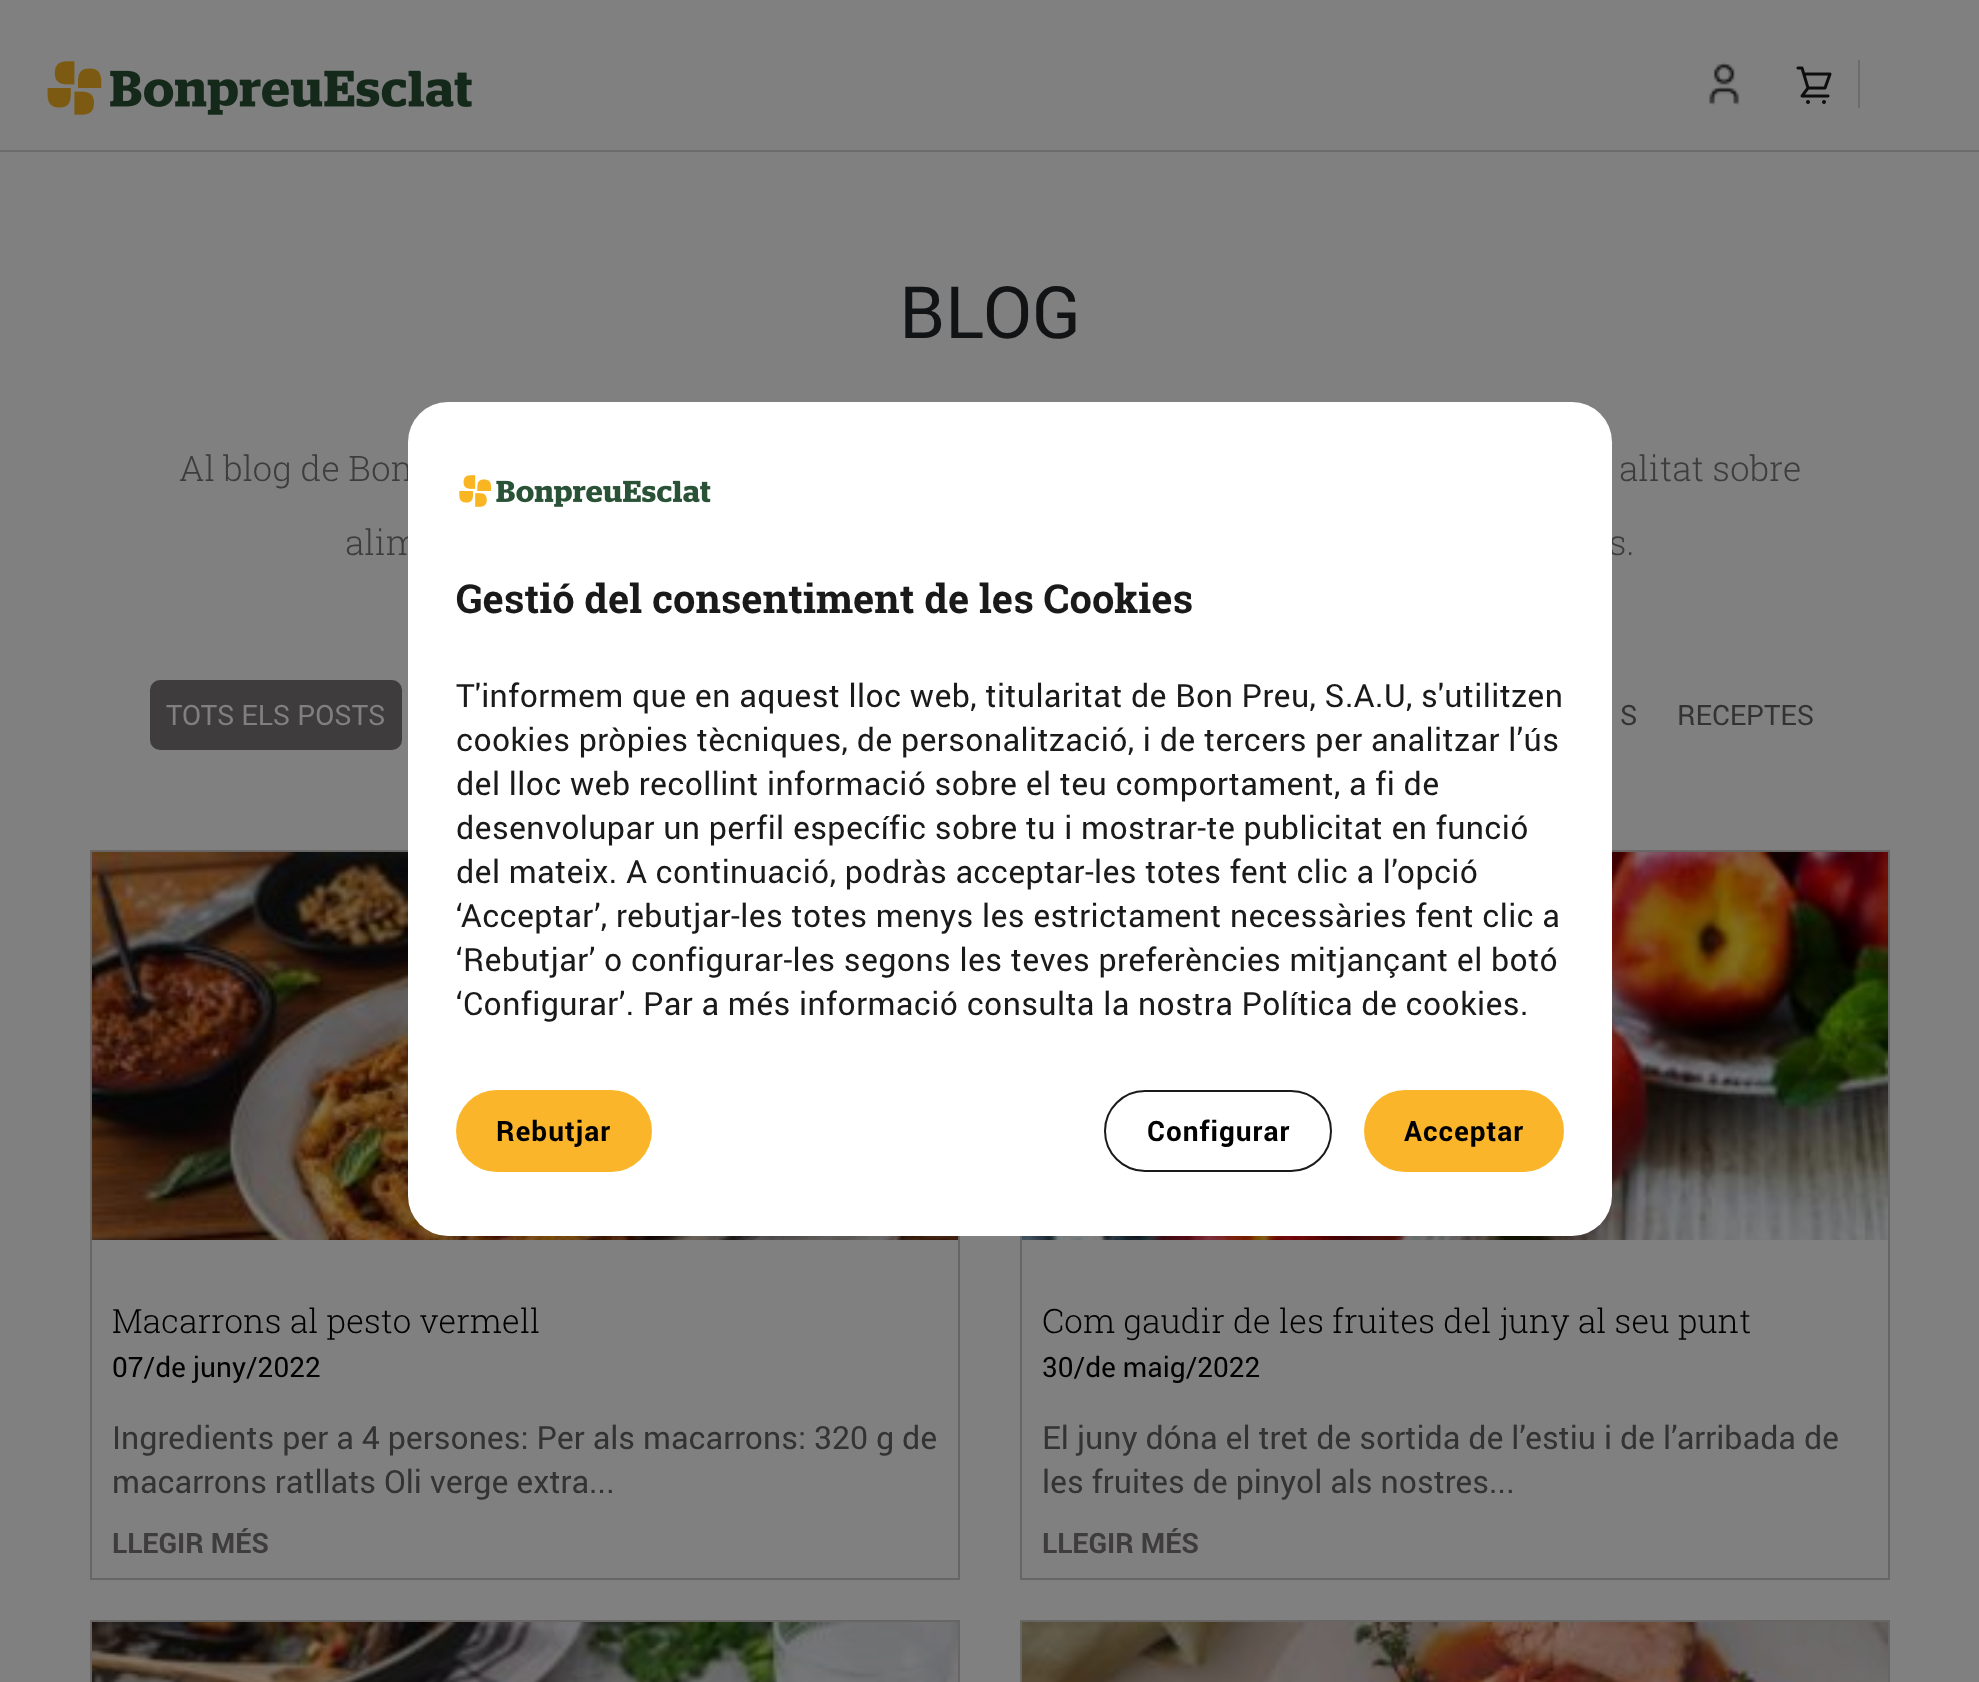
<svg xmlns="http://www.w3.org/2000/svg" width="1979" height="1682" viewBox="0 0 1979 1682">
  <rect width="100%" height="100%" fill="#808080"/>
  <path d="M0 150h1979v2H0z" fill="#6c6c6c"/>
  <image x="47" y="61" width="425" height="54" href="img/1.png"/>
  <image x="1709" y="62" width="31" height="44" href="img/2.png"/>
  <image x="1796" y="66" width="36" height="38" href="img/3.png"/>
  <path d="M1858 60h2v48H1858z" fill="#6c6c6c"/>
  <rect x="150" y="680" width="252" height="70" rx="10" fill="#3e3c3c"/>
  <path d="M91 851h868v728H91z" fill="none" stroke="#686565" stroke-width="2"/>
  <image x="92" y="852" width="866" height="388" href="img/4.png"/>
  <path d="M1021 851h868v728H1021z" fill="none" stroke="#686565" stroke-width="2"/>
  <image x="1022" y="852" width="866" height="388" href="img/5.png"/>
  <path d="M91 1621h868v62H91z" fill="none" stroke="#686565" stroke-width="2"/>
  <image x="92" y="1622" width="866" height="60" href="img/6.png"/>
  <path d="M1021 1621h868v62H1021z" fill="none" stroke="#686565" stroke-width="2"/>
  <image x="1022" y="1622" width="866" height="60" href="img/7.png"/>
  <text x="899" y="338" font-family="Roboto" font-size="72" fill="#111315">BLOG</text>
  <g font-family="Roboto Slab" font-size="35" font-weight="300" fill="#3e3c3c">
    <text x="179" y="481">Al blog de Bon</text>
    <text x="1619" y="481">alitat sobre</text>
    <text x="345" y="555">alim</text>
    <text x="1609" y="555">s.</text>
  </g>
  <text x="166" y="725" font-family="Roboto" font-size="28" fill="#808080">TOTS ELS POSTS</text>
  <g font-family="Roboto" font-size="28" fill="#333">
    <text x="1620" y="725">S</text>
    <text x="1677" y="725">RECEPTES</text>
  </g>
  <text x="112" y="1333" font-family="Roboto Slab" font-size="33.6" font-weight="300" fill="#000">Macarrons al pesto vermell</text>
  <text x="112" y="1377" font-family="Roboto" font-size="28" fill="#000">07/de juny/2022</text>
  <g font-family="Roboto" font-size="32" fill="#333">
    <text x="112" y="1449">Ingredients per a 4 persones: Per als macarrons: 320 g de</text>
    <text x="112" y="1493">macarrons ratllats Oli verge extra...</text>
  </g>
  <text x="112" y="1553" font-family="Roboto" font-size="28" font-weight="bold" fill="#3e3c3c">LLEGIR MÉS</text>
  <text x="1042" y="1333" font-family="Roboto Slab" font-size="33.6" font-weight="300" fill="#000">Com gaudir de les fruites del juny al seu punt</text>
  <text x="1042" y="1377" font-family="Roboto" font-size="28" fill="#000">30/de maig/2022</text>
  <g font-family="Roboto" font-size="32" fill="#333">
    <text x="1042" y="1449">El juny dóna el tret de sortida de l’estiu i de l’arribada de</text>
    <text x="1042" y="1493">les fruites de pinyol als nostres...</text>
  </g>
  <text x="1042" y="1553" font-family="Roboto" font-size="28" font-weight="bold" fill="#3e3c3c">LLEGIR MÉS</text>
  <rect x="408" y="402" width="1204" height="834" rx="40" fill="#fff"/>
  <image x="459" y="475" width="252" height="32" href="img/8.png"/>
  <text x="456" y="613" font-family="Roboto Slab" font-size="40" font-weight="bold" fill="#1a1a1a">Gestió del consentiment de les Cookies</text>
  <g font-family="Roboto" font-size="32" letter-spacing="0.4" fill="#1a1a1a">
    <text x="456" y="707">T'informem que en aquest lloc web, titularitat de Bon Preu, S.A.U, s'utilitzen</text>
    <text x="456" y="751">cookies pròpies tècniques, de personalització, i de tercers per analitzar l’ús</text>
    <text x="456" y="795">del lloc web recollint informació sobre el teu comportament, a fi de</text>
    <text x="456" y="839">desenvolupar un perfil específic sobre tu i mostrar-te publicitat en funció</text>
    <text x="456" y="883">del mateix. A continuació, podràs acceptar-les totes fent clic a l’opció</text>
    <text x="456" y="927">‘Acceptar’, rebutjar-les totes menys les estrictament necessàries fent clic a</text>
    <text x="456" y="971">‘Rebutjar’ o configurar-les segons les teves preferències mitjançant el botó</text>
    <text x="456" y="1015">‘Configurar’. Par a més informació consulta la nostra Política de cookies.</text>
  </g>
  <rect x="456" y="1090" width="196" height="82" rx="41" fill="#fab52a"/>
  <text x="496" y="1141" font-family="Roboto" font-size="28" font-weight="bold" letter-spacing="1" fill="#000">Rebutjar</text>
  <rect x="1105" y="1091" width="226" height="80" rx="40" fill="none" stroke="#1a1a1a" stroke-width="2"/>
  <text x="1147" y="1141" font-family="Roboto" font-size="28" font-weight="bold" letter-spacing="1" fill="#000">Configurar</text>
  <rect x="1364" y="1090" width="200" height="82" rx="41" fill="#fab52a"/>
  <text x="1404" y="1141" font-family="Roboto" font-size="28" font-weight="bold" letter-spacing="1" fill="#000">Acceptar</text>
</svg>
